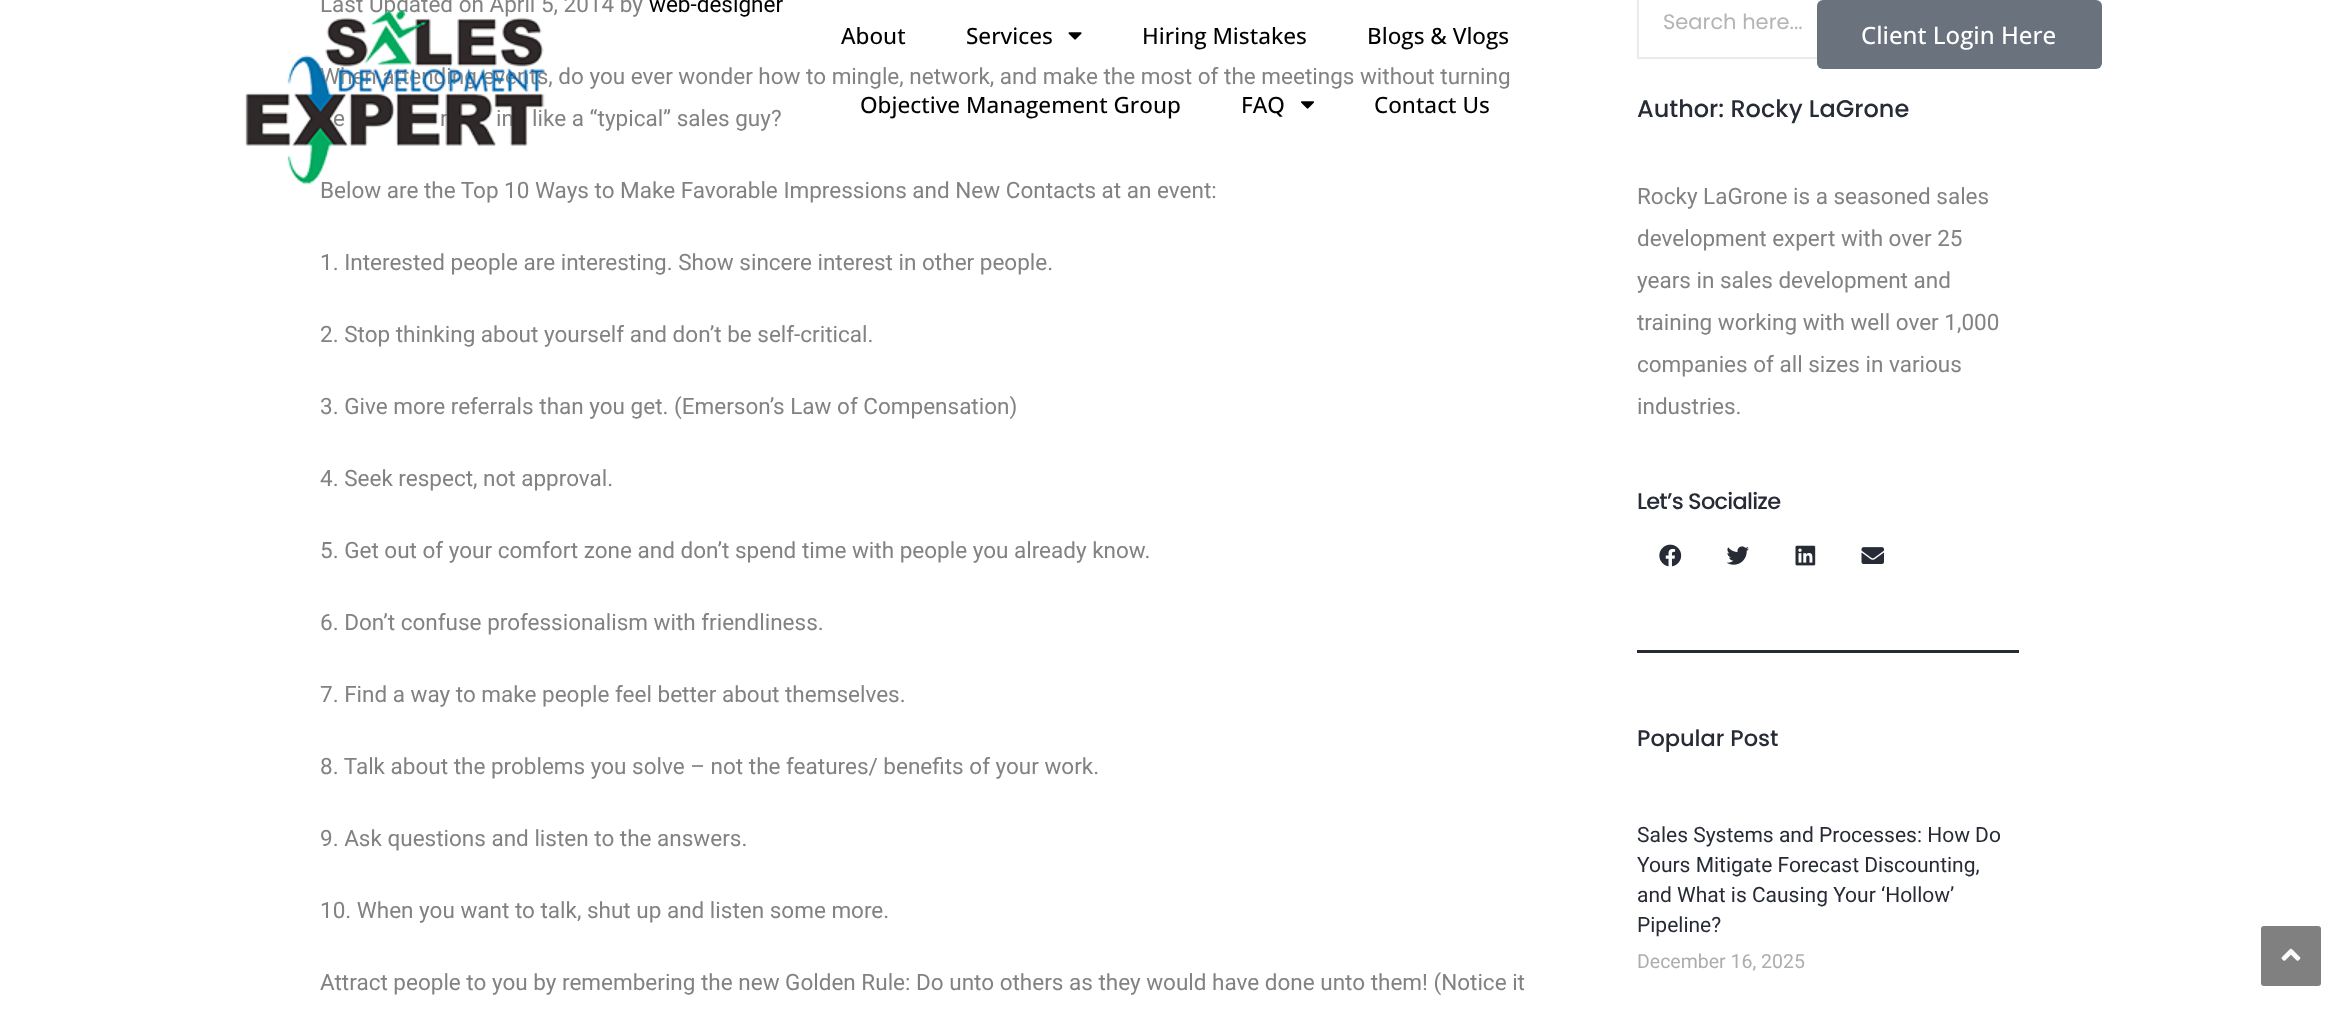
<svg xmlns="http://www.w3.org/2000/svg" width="2350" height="1015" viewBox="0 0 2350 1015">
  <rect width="100%" height="100%" fill="#fff"/>
  <path d="M1638 -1h380v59H1638z" fill="none" stroke="#ebebeb" stroke-width="2"/>
  <image x="1659" y="544" width="23" height="23" href="img/1.png"/>
  <image x="1726" y="546" width="23" height="19" href="img/2.png"/>
  <image x="1795" y="545" width="21" height="21" href="img/3.png"/>
  <image x="1861" y="547" width="23" height="17" href="img/4.png"/>
  <path d="M1637 650h382v3H1637z" fill="#272b36"/>
  <image x="1068" y="32" width="14" height="8" href="img/6.png"/>
  <image x="1301" y="101" width="13" height="8" href="img/7.png"/>
  <rect x="1817" width="285" height="69" rx="6" fill="#69727d"/>
  <rect x="2261" y="926" width="60" height="60" rx="3" fill="#808080"/>
  <image x="2281" y="948" width="20" height="13" href="img/8.png"/>
  <text x="320" y="12" font-family="Roboto" font-size="22.5" fill="#828282">Last Updated on April 5, 2014 by</text>
  <text x="649" y="12" font-family="Roboto" font-size="22.5" fill="#000">web-designer</text>
  <g font-family="Roboto" font-size="22.5" fill="#828282">
    <text x="320" y="84">When attending events, do you ever wonder how to mingle, network, and make the most of the meetings without turning</text>
    <text x="333" y="126">e</text>
    <text x="440" y="126">r</text>
    <text x="496" y="126">ing like a “typical” sales guy?</text>
    <text x="320" y="198">Below are the Top 10 Ways to Make Favorable Impressions and New Contacts at an event:</text>
    <text x="320" y="270">1. Interested people are interesting. Show sincere interest in other people.</text>
    <text x="320" y="342">2. Stop thinking about yourself and don’t be self-critical.</text>
    <text x="320" y="414">3. Give more referrals than you get. (Emerson’s Law of Compensation)</text>
    <text x="320" y="486">4. Seek respect, not approval.</text>
    <text x="320" y="558">5. Get out of your comfort zone and don’t spend time with people you already know.</text>
    <text x="320" y="630">6. Don’t confuse professionalism with friendliness.</text>
    <text x="320" y="702">7. Find a way to make people feel better about themselves.</text>
    <text x="320" y="774">8. Talk about the problems you solve – not the features/ benefits of your work.</text>
    <text x="320" y="846">9. Ask questions and listen to the answers.</text>
    <text x="320" y="918">10. When you want to talk, shut up and listen some more.</text>
    <text x="320" y="990">Attract people to you by remembering the new Golden Rule: Do unto others as they would have done unto them! (Notice it</text>
  </g>
  <text x="1663" y="29" font-family="Poppins" font-size="21" fill="#b4b4b4">Search here...</text>
  <text x="1637" y="117" font-family="Poppins" font-size="24" font-weight="500" fill="#272b36">Author: Rocky LaGrone</text>
  <g font-family="Roboto" font-size="22.5" fill="#828282">
    <text x="1637" y="204">Rocky LaGrone is a seasoned sales</text>
    <text x="1637" y="246">development expert with over 25</text>
    <text x="1637" y="288">years in sales development and</text>
    <text x="1637" y="330">training working with well over 1,000</text>
    <text x="1637" y="372">companies of all sizes in various</text>
    <text x="1637" y="414">industries.</text>
  </g>
  <text x="1637" y="509" font-family="Poppins" font-size="22.5" font-weight="500" letter-spacing="-0.75" fill="#272b36">Let’s Socialize</text>
  <text x="1637" y="746" font-family="Poppins" font-size="22.5" font-weight="500" fill="#272b36">Popular Post</text>
  <g font-family="Roboto" font-size="21" fill="#272b36">
    <text x="1637" y="842">Sales Systems and Processes: How Do</text>
    <text x="1637" y="872">Yours Mitigate Forecast Discounting,</text>
    <text x="1637" y="902">and What is Causing Your ‘Hollow’</text>
    <text x="1637" y="932">Pipeline?</text>
  </g>
  <text x="1637" y="968" font-family="Roboto" font-size="19.5" fill="#adadad">December 16, 2025</text>
  <image x="245" y="10" width="300" height="175" href="img/5.png"/>
  <g font-family="Open Sans" font-size="22.5" font-weight="500" fill="#000">
    <text x="841" y="44">About</text>
    <text x="966" y="44">Services</text>
    <text x="1142" y="44">Hiring Mistakes</text>
    <text x="1367" y="44">Blogs &amp; Vlogs</text>
    <text x="860" y="113">Objective Management Group</text>
    <text x="1241" y="113">FAQ</text>
    <text x="1374" y="113">Contact Us</text>
  </g>
  <text x="1861" y="44" font-family="Open Sans" font-size="24" font-weight="500" fill="#fff">Client Login Here</text>
</svg>
